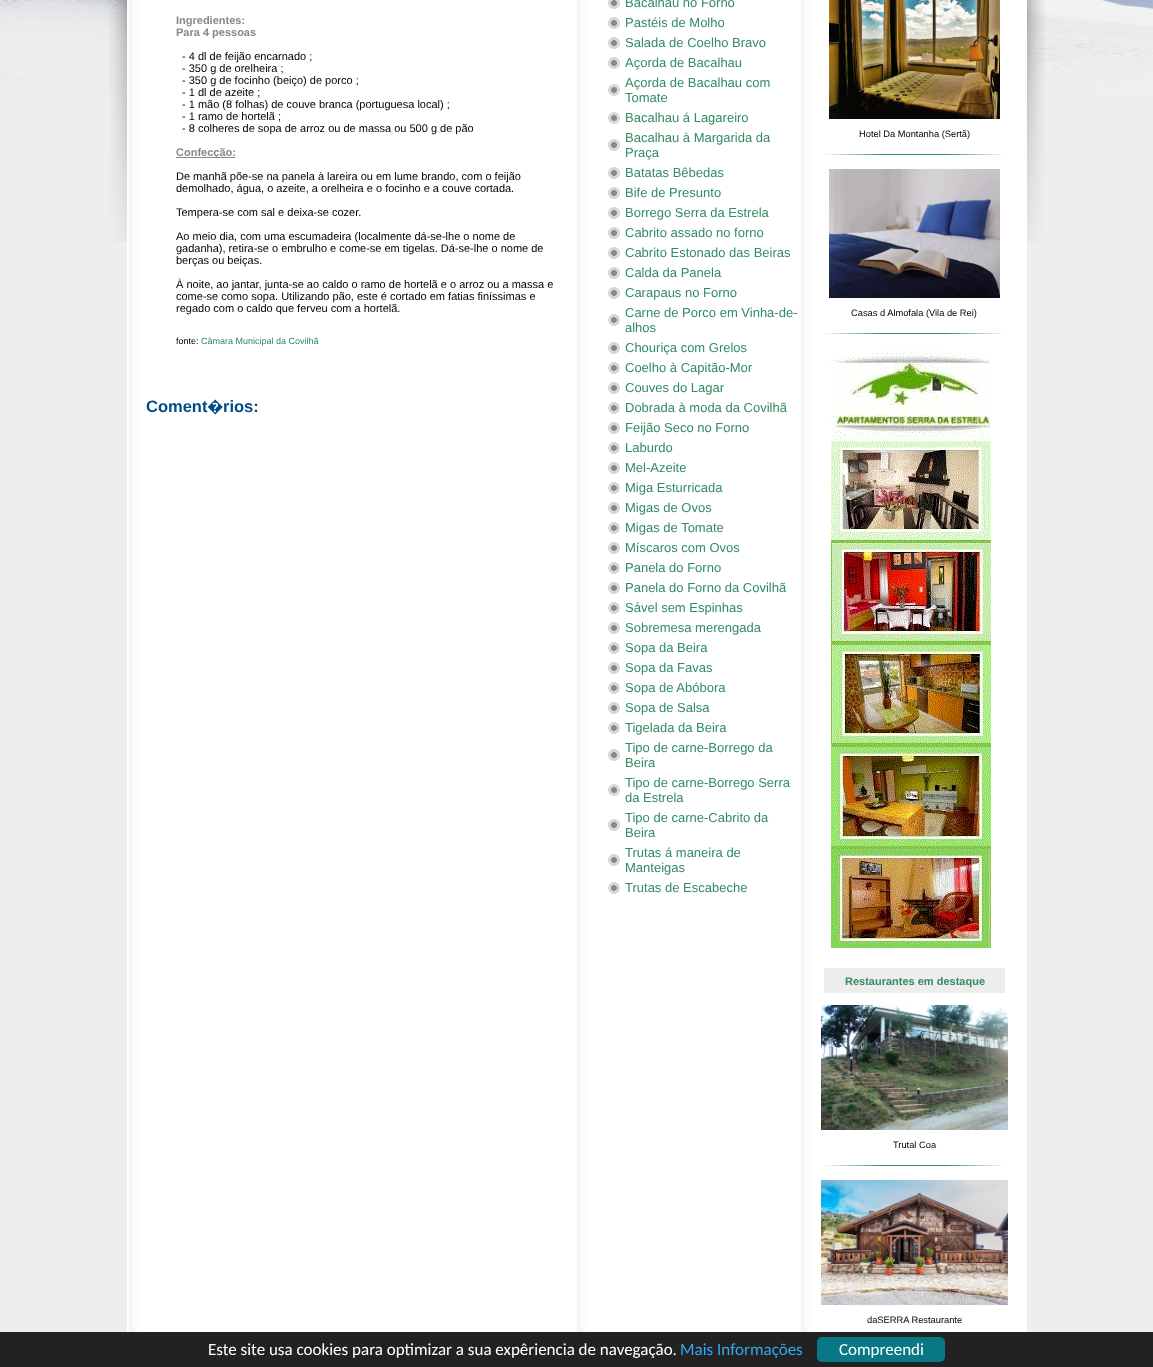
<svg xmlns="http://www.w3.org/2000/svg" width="1153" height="1367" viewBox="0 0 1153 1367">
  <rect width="100%" height="100%" fill="#eee"/>
  <image x="0" y="0" width="1153" height="95" href="img/1.png"/>
  <image x="109" y="0" width="18" height="242" href="img/2.png"/>
  <image x="1027" y="0" width="18" height="242" href="img/3.png"/>
  <image x="127" y="0" width="900" height="1332" href="img/4.png"/>
  <path d="M176 157h59v1H176z" fill="#888"/>
  <image x="608" y="0" width="12" height="9" href="img/5.png"/>
  <image x="608" y="17" width="12" height="12" href="img/6.png"/>
  <image x="608" y="37" width="12" height="12" href="img/6.png"/>
  <image x="608" y="57" width="12" height="12" href="img/6.png"/>
  <image x="608" y="84" width="12" height="12" href="img/6.png"/>
  <image x="608" y="112" width="12" height="12" href="img/6.png"/>
  <image x="608" y="139" width="12" height="12" href="img/6.png"/>
  <image x="608" y="167" width="12" height="12" href="img/6.png"/>
  <image x="608" y="187" width="12" height="12" href="img/6.png"/>
  <image x="608" y="207" width="12" height="12" href="img/6.png"/>
  <image x="608" y="227" width="12" height="12" href="img/6.png"/>
  <image x="608" y="247" width="12" height="12" href="img/6.png"/>
  <image x="608" y="267" width="12" height="12" href="img/6.png"/>
  <image x="608" y="287" width="12" height="12" href="img/6.png"/>
  <image x="608" y="314" width="12" height="12" href="img/6.png"/>
  <image x="608" y="342" width="12" height="12" href="img/6.png"/>
  <image x="608" y="362" width="12" height="12" href="img/6.png"/>
  <image x="608" y="382" width="12" height="12" href="img/6.png"/>
  <image x="608" y="402" width="12" height="12" href="img/6.png"/>
  <image x="608" y="422" width="12" height="12" href="img/6.png"/>
  <image x="608" y="442" width="12" height="12" href="img/6.png"/>
  <image x="608" y="462" width="12" height="12" href="img/6.png"/>
  <image x="608" y="482" width="12" height="12" href="img/6.png"/>
  <image x="608" y="502" width="12" height="12" href="img/6.png"/>
  <image x="608" y="522" width="12" height="12" href="img/6.png"/>
  <image x="608" y="542" width="12" height="12" href="img/6.png"/>
  <image x="608" y="562" width="12" height="12" href="img/6.png"/>
  <image x="608" y="582" width="12" height="12" href="img/6.png"/>
  <image x="608" y="602" width="12" height="12" href="img/6.png"/>
  <image x="608" y="622" width="12" height="12" href="img/6.png"/>
  <image x="608" y="642" width="12" height="12" href="img/6.png"/>
  <image x="608" y="662" width="12" height="12" href="img/6.png"/>
  <image x="608" y="682" width="12" height="12" href="img/6.png"/>
  <image x="608" y="702" width="12" height="12" href="img/6.png"/>
  <image x="608" y="722" width="12" height="12" href="img/6.png"/>
  <image x="608" y="749" width="12" height="12" href="img/6.png"/>
  <image x="608" y="784" width="12" height="12" href="img/6.png"/>
  <image x="608" y="819" width="12" height="12" href="img/6.png"/>
  <image x="608" y="854" width="12" height="12" href="img/6.png"/>
  <image x="608" y="882" width="12" height="12" href="img/6.png"/>
  <image x="829" y="0" width="171" height="119" href="img/7.png"/>
  <image x="823" y="154" width="181" height="1" href="img/8.png"/>
  <image x="829" y="169" width="171" height="129" href="img/9.png"/>
  <image x="823" y="333" width="181" height="1" href="img/8.png"/>
  <image x="831" y="351" width="160" height="597" href="img/10.png"/>
  <path d="M824 968h181v25H824z" fill="#ededed"/>
  <image x="821" y="1005" width="187" height="125" href="img/11.png"/>
  <image x="823" y="1165" width="181" height="1" href="img/8.png"/>
  <image x="821" y="1180" width="187" height="125" href="img/12.png"/>
  <path d="M0 1332h1153v35H0z" fill="#222"/>
  <rect x="817" y="1337" width="128" height="25" rx="5" fill="#087886"/>
  <g font-family="Liberation Sans" font-size="11" font-weight="bold" fill="#888">
    <text x="176" y="24">Ingredientes:</text>
    <text x="176" y="36">Para 4 pessoas</text>
  </g>
  <g font-family="Liberation Sans" font-size="11" fill="#000">
    <text x="182" y="60">- 4 dl de feijão encarnado ;</text>
    <text x="182" y="72">- 350 g de orelheira ;</text>
    <text x="182" y="84">- 350 g de focinho (beiço) de porco ;</text>
    <text x="182" y="96">- 1 dl de azeite ;</text>
    <text x="182" y="108">- 1 mão (8 folhas) de couve branca (portuguesa local) ;</text>
    <text x="182" y="120">- 1 ramo de hortelã ;</text>
    <text x="182" y="132">- 8 colheres de sopa de arroz ou de massa ou 500 g de pão</text>
  </g>
  <text x="176" y="156" font-family="Liberation Sans" font-size="11" font-weight="bold" fill="#888">Confecção:</text>
  <g font-family="Liberation Sans" font-size="11" fill="#000">
    <text x="176" y="180">De manhã põe-se na panela à lareira ou em lume brando, com o feijão</text>
    <text x="176" y="192">demolhado, água, o azeite, a orelheira e o focinho e a couve cortada.</text>
    <text x="176" y="216">Tempera-se com sal e deixa-se cozer.</text>
    <text x="176" y="240">Ao meio dia, com uma escumadeira (localmente dá-se-lhe o nome de</text>
    <text x="176" y="252">gadanha), retira-se o embrulho e come-se em tigelas. Dá-se-lhe o nome de</text>
    <text x="176" y="264">berças ou beiças.</text>
    <text x="176" y="288">À noite, ao jantar, junta-se ao caldo o ramo de hortelã e o arroz ou a massa e</text>
    <text x="176" y="300">come-se como sopa. Utilizando pão, este é cortado em fatias finíssimas e</text>
    <text x="176" y="312">regado com o caldo que ferveu com a hortelã.</text>
  </g>
  <text x="176" y="344" font-family="Liberation Sans" font-size="9" fill="#000">fonte:</text>
  <text x="201" y="344" font-family="Liberation Sans" font-size="9" fill="#338b61">Câmara Municipal da Covilhã</text>
  <text x="146" y="412" font-family="Liberation Sans" font-size="16.5" font-weight="bold" fill="#004c89">Coment</text>
  <text x="207" y="412" font-family="Noto Sans" font-size="16.5" font-weight="bold" fill="#004c89">�</text>
  <text x="223" y="412" font-family="Liberation Sans" font-size="16.5" font-weight="bold" fill="#004c89">rios:</text>
  <g font-family="Liberation Sans" font-size="13" fill="#338b61">
    <text x="625" y="7">Bacalhau no Forno</text>
    <text x="625" y="27">Pastéis de Molho</text>
    <text x="625" y="47">Salada de Coelho Bravo</text>
    <text x="625" y="67">Açorda de Bacalhau</text>
    <text x="625" y="87">Açorda de Bacalhau com</text>
    <text x="625" y="102">Tomate</text>
    <text x="625" y="122">Bacalhau á Lagareiro</text>
    <text x="625" y="142">Bacalhau à Margarida da</text>
    <text x="625" y="157">Praça</text>
    <text x="625" y="177">Batatas Bêbedas</text>
    <text x="625" y="197">Bife de Presunto</text>
    <text x="625" y="217">Borrego Serra da Estrela</text>
    <text x="625" y="237">Cabrito assado no forno</text>
    <text x="625" y="257">Cabrito Estonado das Beiras</text>
    <text x="625" y="277">Calda da Panela</text>
    <text x="625" y="297">Carapaus no Forno</text>
    <text x="625" y="317">Carne de Porco em Vinha-de-</text>
    <text x="625" y="332">alhos</text>
    <text x="625" y="352">Chouriça com Grelos</text>
    <text x="625" y="372">Coelho à Capitão-Mor</text>
    <text x="625" y="392">Couves do Lagar</text>
    <text x="625" y="412">Dobrada à moda da Covilhã</text>
    <text x="625" y="432">Feijão Seco no Forno</text>
    <text x="625" y="452">Laburdo</text>
    <text x="625" y="472">Mel-Azeite</text>
    <text x="625" y="492">Miga Esturricada</text>
    <text x="625" y="512">Migas de Ovos</text>
    <text x="625" y="532">Migas de Tomate</text>
    <text x="625" y="552">Míscaros com Ovos</text>
    <text x="625" y="572">Panela do Forno</text>
    <text x="625" y="592">Panela do Forno da Covilhã</text>
    <text x="625" y="612">Sável sem Espinhas</text>
    <text x="625" y="632">Sobremesa merengada</text>
    <text x="625" y="652">Sopa da Beira</text>
    <text x="625" y="672">Sopa da Favas</text>
    <text x="625" y="692">Sopa de Abóbora</text>
    <text x="625" y="712">Sopa de Salsa</text>
    <text x="625" y="732">Tigelada da Beira</text>
    <text x="625" y="752">Tipo de carne-Borrego da</text>
    <text x="625" y="767">Beira</text>
    <text x="625" y="787">Tipo de carne-Borrego Serra</text>
    <text x="625" y="802">da Estrela</text>
    <text x="625" y="822">Tipo de carne-Cabrito da</text>
    <text x="625" y="837">Beira</text>
    <text x="625" y="857">Trutas á maneira de</text>
    <text x="625" y="872">Manteigas</text>
    <text x="625" y="892">Trutas de Escabeche</text>
  </g>
  <g font-family="Liberation Sans" font-size="9.3" fill="#000">
    <text x="859" y="137">Hotel Da Montanha (Sertã)</text>
    <text x="851" y="316">Casas d Almofala (Vila de Rei)</text>
  </g>
  <text x="845" y="985" font-family="Liberation Sans" font-size="11" font-weight="bold" fill="#338b61">Restaurantes em destaque</text>
  <g font-family="Liberation Sans" font-size="9.3" fill="#000">
    <text x="893" y="1148">Trutal Coa</text>
    <text x="867" y="1323">daSERRA Restaurante</text>
  </g>
  <text x="208" y="1355" font-family="Carlito" font-size="17" fill="#fff">Este site usa cookies para optimizar a sua expêriencia de navegação.</text>
  <text x="680" y="1355" font-family="Carlito" font-size="17" fill="#31a8f0">Mais Informações</text>
  <text x="839" y="1355" font-family="Carlito" font-size="17" fill="#fff">Compreendi</text>
</svg>
